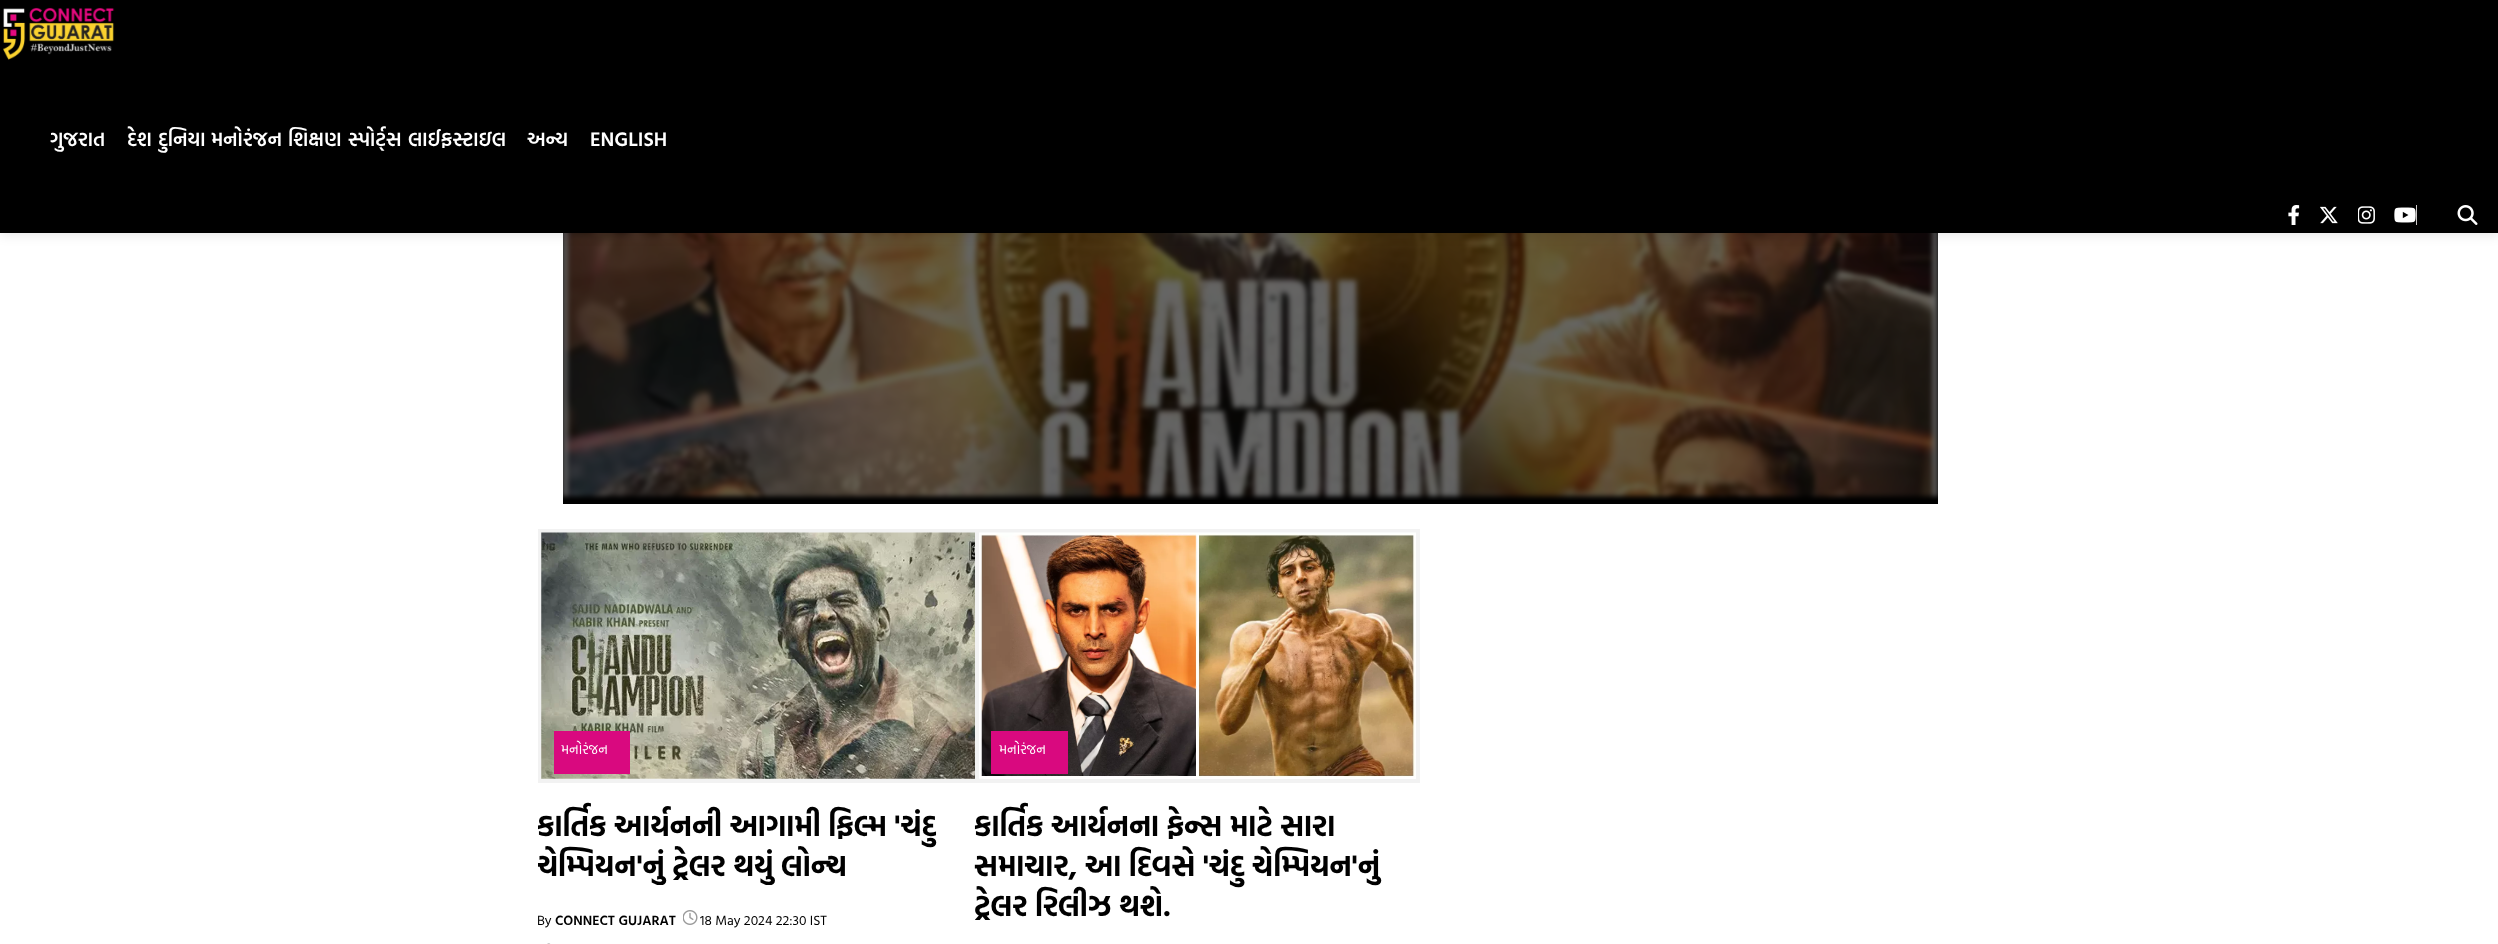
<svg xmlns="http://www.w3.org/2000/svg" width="2498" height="944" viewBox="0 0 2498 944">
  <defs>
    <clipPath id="clip1"><path d="M538 799h437v86H538z"/></clipPath>
    <clipPath id="clip2"><path d="M975 799h438v126H975z"/></clipPath>
  </defs>
  <rect width="100%" height="100%" fill="#fff"/>
  <path d="M563 233h1375v271H563z" fill="#000"/>
  <image x="563" y="233" width="1375" height="267" href="img/7.png"/>
  <path d="M0 3h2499v232H0z" fill="#0000001a" filter="blur(6px)"/>
  <path d="M0 0h2498v233H0z" fill="#000"/>
  <image x="3" y="7" width="112" height="53" href="img/1.png"/>
  <image x="2288" y="205" width="12" height="20" href="img/2.png"/>
  <image x="2320" y="206" width="18" height="18" href="img/3.png"/>
  <image x="2358" y="206" width="17" height="18" href="img/4.png"/>
  <image x="2394" y="207" width="22" height="16" href="img/5.png"/>
  <path d="M2416 205h1v20H2416z" fill="#cdcaca"/>
  <image x="2457" y="205" width="21" height="20" href="img/6.png"/>
  <path d="M540 531h441v250H540z" fill="none" stroke="#f2f2f2" stroke-width="4"/>
  <image x="541" y="532" width="434" height="247" href="img/8.png"/>
  <path d="M554 731h76v43H554z" fill="#d9097f"/>
  <image x="683" y="910" width="15" height="15" href="img/9.png"/>
  <image x="547" y="943" width="4" height="1" href="img/10.png"/>
  <path d="M977 531h441v250H977z" fill="none" stroke="#f2f2f2" stroke-width="4"/>
  <image x="979" y="532" width="437" height="247" href="img/11.png"/>
  <path d="M991 731h77v43H991z" fill="#d9097f"/>
  <g font-family="Hind Vadodara" font-size="20" font-weight="600" fill="#fff">
    <text x="50" y="146">ગુજરાત</text>
    <text x="127" y="146">દેશ</text>
    <text x="158" y="146">દુનિયા</text>
    <text x="211" y="146">મનોરંજન</text>
    <text x="288" y="146">શિક્ષણ</text>
    <text x="348" y="146">સ્પોર્ટ્સ</text>
    <text x="408" y="146">લાઈફસ્ટાઇલ</text>
    <text x="527" y="146">અન્ય</text>
    <text x="590" y="146">ENGLISH</text>
  </g>
  <text x="561" y="754" font-family="Hind Vadodara" font-size="13.75" fill="#fff">મનોરંજન</text>
  <g clip-path="url(#clip1)">
    <g font-family="Hind Vadodara" font-size="30" font-weight="bold" fill="#000">
      <text x="537" y="836">કાર્તિક આર્યનની આગામી ફિલ્મ 'ચંદુ</text>
      <text x="537" y="876">ચેમ્પિયન'નું ટ્રેલર થયું લોન્ચ</text>
    </g>
  </g>
  <text x="537" y="925" font-family="Hind Vadodara" font-size="13.75" fill="#000">By</text>
  <text x="555" y="925" font-family="Hind Vadodara" font-size="13.75" font-weight="600" fill="#000">CONNECT GUJARAT</text>
  <text x="700" y="925" font-family="Hind Vadodara" font-size="13.75" fill="#000">18 May 2024 22:30 IST</text>
  <text x="999" y="754" font-family="Hind Vadodara" font-size="13.75" fill="#fff">મનોરંજન</text>
  <g font-family="Hind Vadodara" font-size="30" font-weight="bold" fill="#000">
    <text x="974" y="836">કાર્તિક આર્યનના ફેન્સ માટે સારા</text>
    <text x="974" y="876">સમાચાર, આ દિવસે 'ચંદુ ચેમ્પિયન'નું</text>
  </g>
  <g clip-path="url(#clip2)">
    <text x="974" y="916" font-family="Hind Vadodara" font-size="30" font-weight="bold" fill="#000">ટ્રેલર રિલીઝ થશે.</text>
  </g>
</svg>
